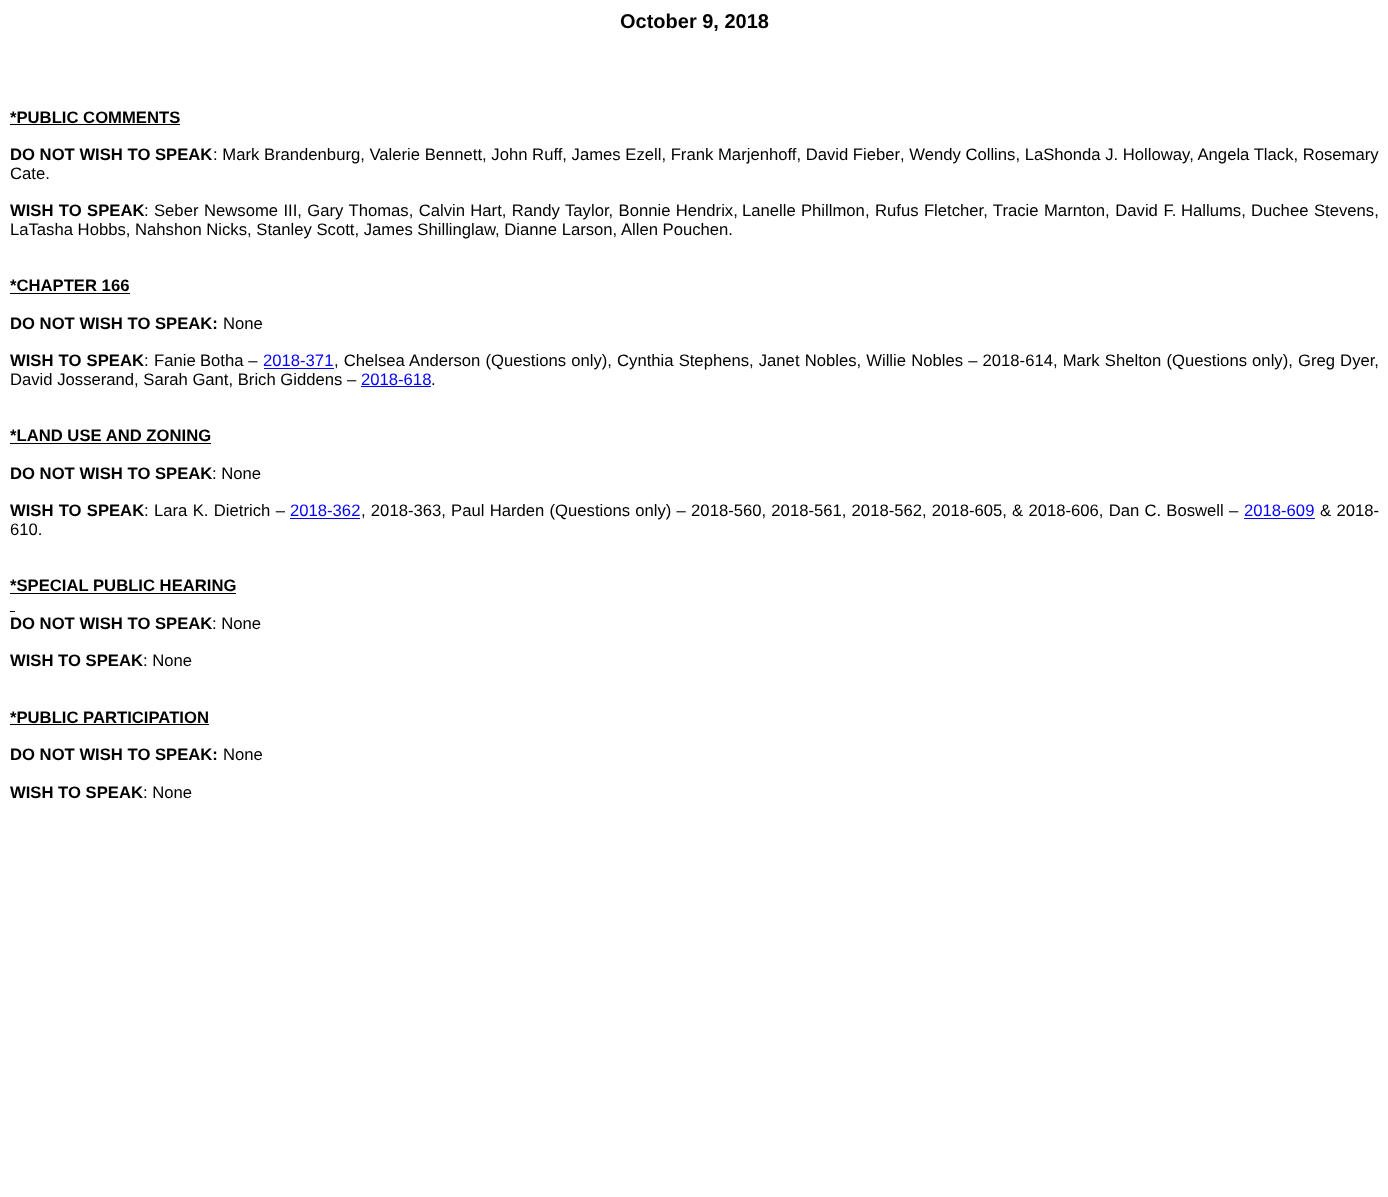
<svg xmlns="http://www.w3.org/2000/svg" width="1388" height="1197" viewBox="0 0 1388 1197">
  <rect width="100%" height="100%" fill="#fff"/>
  <path d="M10 124h170v1H10z" fill="#000"/>
  <path d="M10 293h120v1H10z" fill="#000"/>
  <path d="M264 368h70v1H264z" fill="#00f"/>
  <path d="M361 386h70v1H361z" fill="#00f"/>
  <path d="M10 443h201v1H10z" fill="#000"/>
  <path d="M290 518h70v1H290z" fill="#00f"/>
  <path d="M1244 518h71v1H1244z" fill="#00f"/>
  <path d="M10 593h226v1H10z" fill="#000"/>
  <path d="M10 611h5v1H10z" fill="#000"/>
  <path d="M10 724h199v1H10z" fill="#000"/>
  <text x="620" y="28" font-family="Liberation Sans" font-size="20" font-weight="bold" fill="#000">October 9, 2018</text>
  <g font-family="Liberation Sans" font-size="16.67" font-weight="bold" fill="#000">
    <text x="10" y="123">*PUBLIC COMMENTS</text>
    <text x="10" y="160">DO NOT WISH TO SPEAK</text>
  </g>
  <g font-family="Liberation Sans" font-size="16.67" fill="#000">
    <text x="213" y="160">: Mark Brandenburg, Valerie Bennett, John Ruff, James Ezell, Frank</text>
    <text x="718" y="160">Marjenhoff, David Fieber</text>
    <text x="900" y="160">, Wendy Collins, LaShonda J. Holloway, Angela Tlack, Rosemary</text>
    <text x="10" y="179">Cate.</text>
  </g>
  <text x="10" y="216" word-spacing="0.75" font-family="Liberation Sans" font-size="16.67" font-weight="bold" fill="#000">WISH TO SPEAK</text>
  <g font-family="Liberation Sans" font-size="16.67" fill="#000">
    <text x="144" y="216">:</text>
    <text x="154" y="216">Seber</text>
    <text x="204" y="216" word-spacing="0.75">Newsome III, Gary Thomas, Calvin Hart, Randy Taylor, Bonnie Hendrix,</text>
    <text x="742" y="216">Lanelle</text>
    <text x="801" y="216">Phillmon</text>
    <text x="865" y="216" word-spacing="0.75">, Rufus Fletcher, Tracie</text>
    <text x="1044" y="216">Marnton</text>
    <text x="1105" y="216" word-spacing="1">, David F.</text>
    <text x="1181" y="216">Hallums,</text>
    <text x="1251" y="216">Duchee</text>
    <text x="1314" y="216">Stevens,</text>
    <text x="10" y="235">LaTasha Hobbs, Nahshon Nicks, Stanley Scott, James Shillinglaw</text>
    <text x="495" y="235">, Dianne Larson, Allen Pouchen.</text>
  </g>
  <g font-family="Liberation Sans" font-size="16.67" font-weight="bold" fill="#000">
    <text x="10" y="291">*CHAPTER 166</text>
    <text x="10" y="329">DO NOT WISH TO SPEAK:</text>
  </g>
  <text x="223" y="329" font-family="Liberation Sans" font-size="16.67" fill="#000">None</text>
  <text x="10" y="366" word-spacing="0.5" font-family="Liberation Sans" font-size="16.67" font-weight="bold" fill="#000">WISH TO SPEAK</text>
  <g font-family="Liberation Sans" font-size="16.67" fill="#000">
    <text x="144" y="366">:</text>
    <text x="154" y="366">Fanie</text>
    <text x="200" y="366">Botha –</text>
  </g>
  <text x="263" y="366" font-family="Liberation Sans" font-size="16.67" fill="#00f">2018-371</text>
  <g font-family="Liberation Sans" font-size="16.67" fill="#000">
    <text x="334" y="366" word-spacing="0.5">, Chelsea Anderson (Questions only), Cynthia Stephens, Janet Nobles, Willie Nobles – 2018-614, Mark Shelton (Questions only), Greg Dyer,</text>
    <text x="10" y="385">David Josserand, Sarah Gant, Brich Giddens –</text>
  </g>
  <text x="361" y="385" font-family="Liberation Sans" font-size="16.67" fill="#00f">2018-618</text>
  <text x="431" y="385" font-family="Liberation Sans" font-size="16.67" fill="#000">.</text>
  <g font-family="Liberation Sans" font-size="16.67" font-weight="bold" fill="#000">
    <text x="10" y="441">*LAND USE AND ZONING</text>
    <text x="10" y="479">DO NOT WISH TO SPEAK</text>
  </g>
  <text x="212" y="479" font-family="Liberation Sans" font-size="16.67" fill="#000">: None</text>
  <text x="10" y="516" word-spacing="0.6" font-family="Liberation Sans" font-size="16.67" font-weight="bold" fill="#000">WISH TO SPEAK</text>
  <text x="144" y="516" word-spacing="0.75" font-family="Liberation Sans" font-size="16.67" fill="#000">: Lara K. Dietrich –</text>
  <text x="290" y="516" font-family="Liberation Sans" font-size="16.67" fill="#00f">2018-362</text>
  <text x="361" y="516" word-spacing="0.6" font-family="Liberation Sans" font-size="16.67" fill="#000">, 2018-363, Paul Harden (Questions only) – 2018-560, 2018-561, 2018-562, 2018-605, &amp; 2018-606, Dan C. Boswell –</text>
  <text x="1244" y="516" font-family="Liberation Sans" font-size="16.67" fill="#00f">2018-609</text>
  <g font-family="Liberation Sans" font-size="16.67" fill="#000">
    <text x="1320" y="516" word-spacing="0.75">&amp; 2018-</text>
    <text x="10" y="535">610.</text>
  </g>
  <g font-family="Liberation Sans" font-size="16.67" font-weight="bold" fill="#000">
    <text x="10" y="591">*SPECIAL PUBLIC HEARING</text>
    <text x="10" y="629">DO NOT WISH TO SPEAK</text>
  </g>
  <text x="212" y="629" font-family="Liberation Sans" font-size="16.67" fill="#000">: None</text>
  <text x="10" y="666" font-family="Liberation Sans" font-size="16.67" font-weight="bold" fill="#000">WISH TO SPEAK</text>
  <text x="143" y="666" font-family="Liberation Sans" font-size="16.67" fill="#000">: None</text>
  <g font-family="Liberation Sans" font-size="16.67" font-weight="bold" fill="#000">
    <text x="10" y="723">*PUBLIC PARTICIPATION</text>
    <text x="10" y="760">DO NOT WISH TO SPEAK:</text>
  </g>
  <text x="223" y="760" font-family="Liberation Sans" font-size="16.67" fill="#000">None</text>
  <text x="10" y="798" font-family="Liberation Sans" font-size="16.67" font-weight="bold" fill="#000">WISH TO SPEAK</text>
  <text x="143" y="798" font-family="Liberation Sans" font-size="16.67" fill="#000">: None</text>
</svg>
